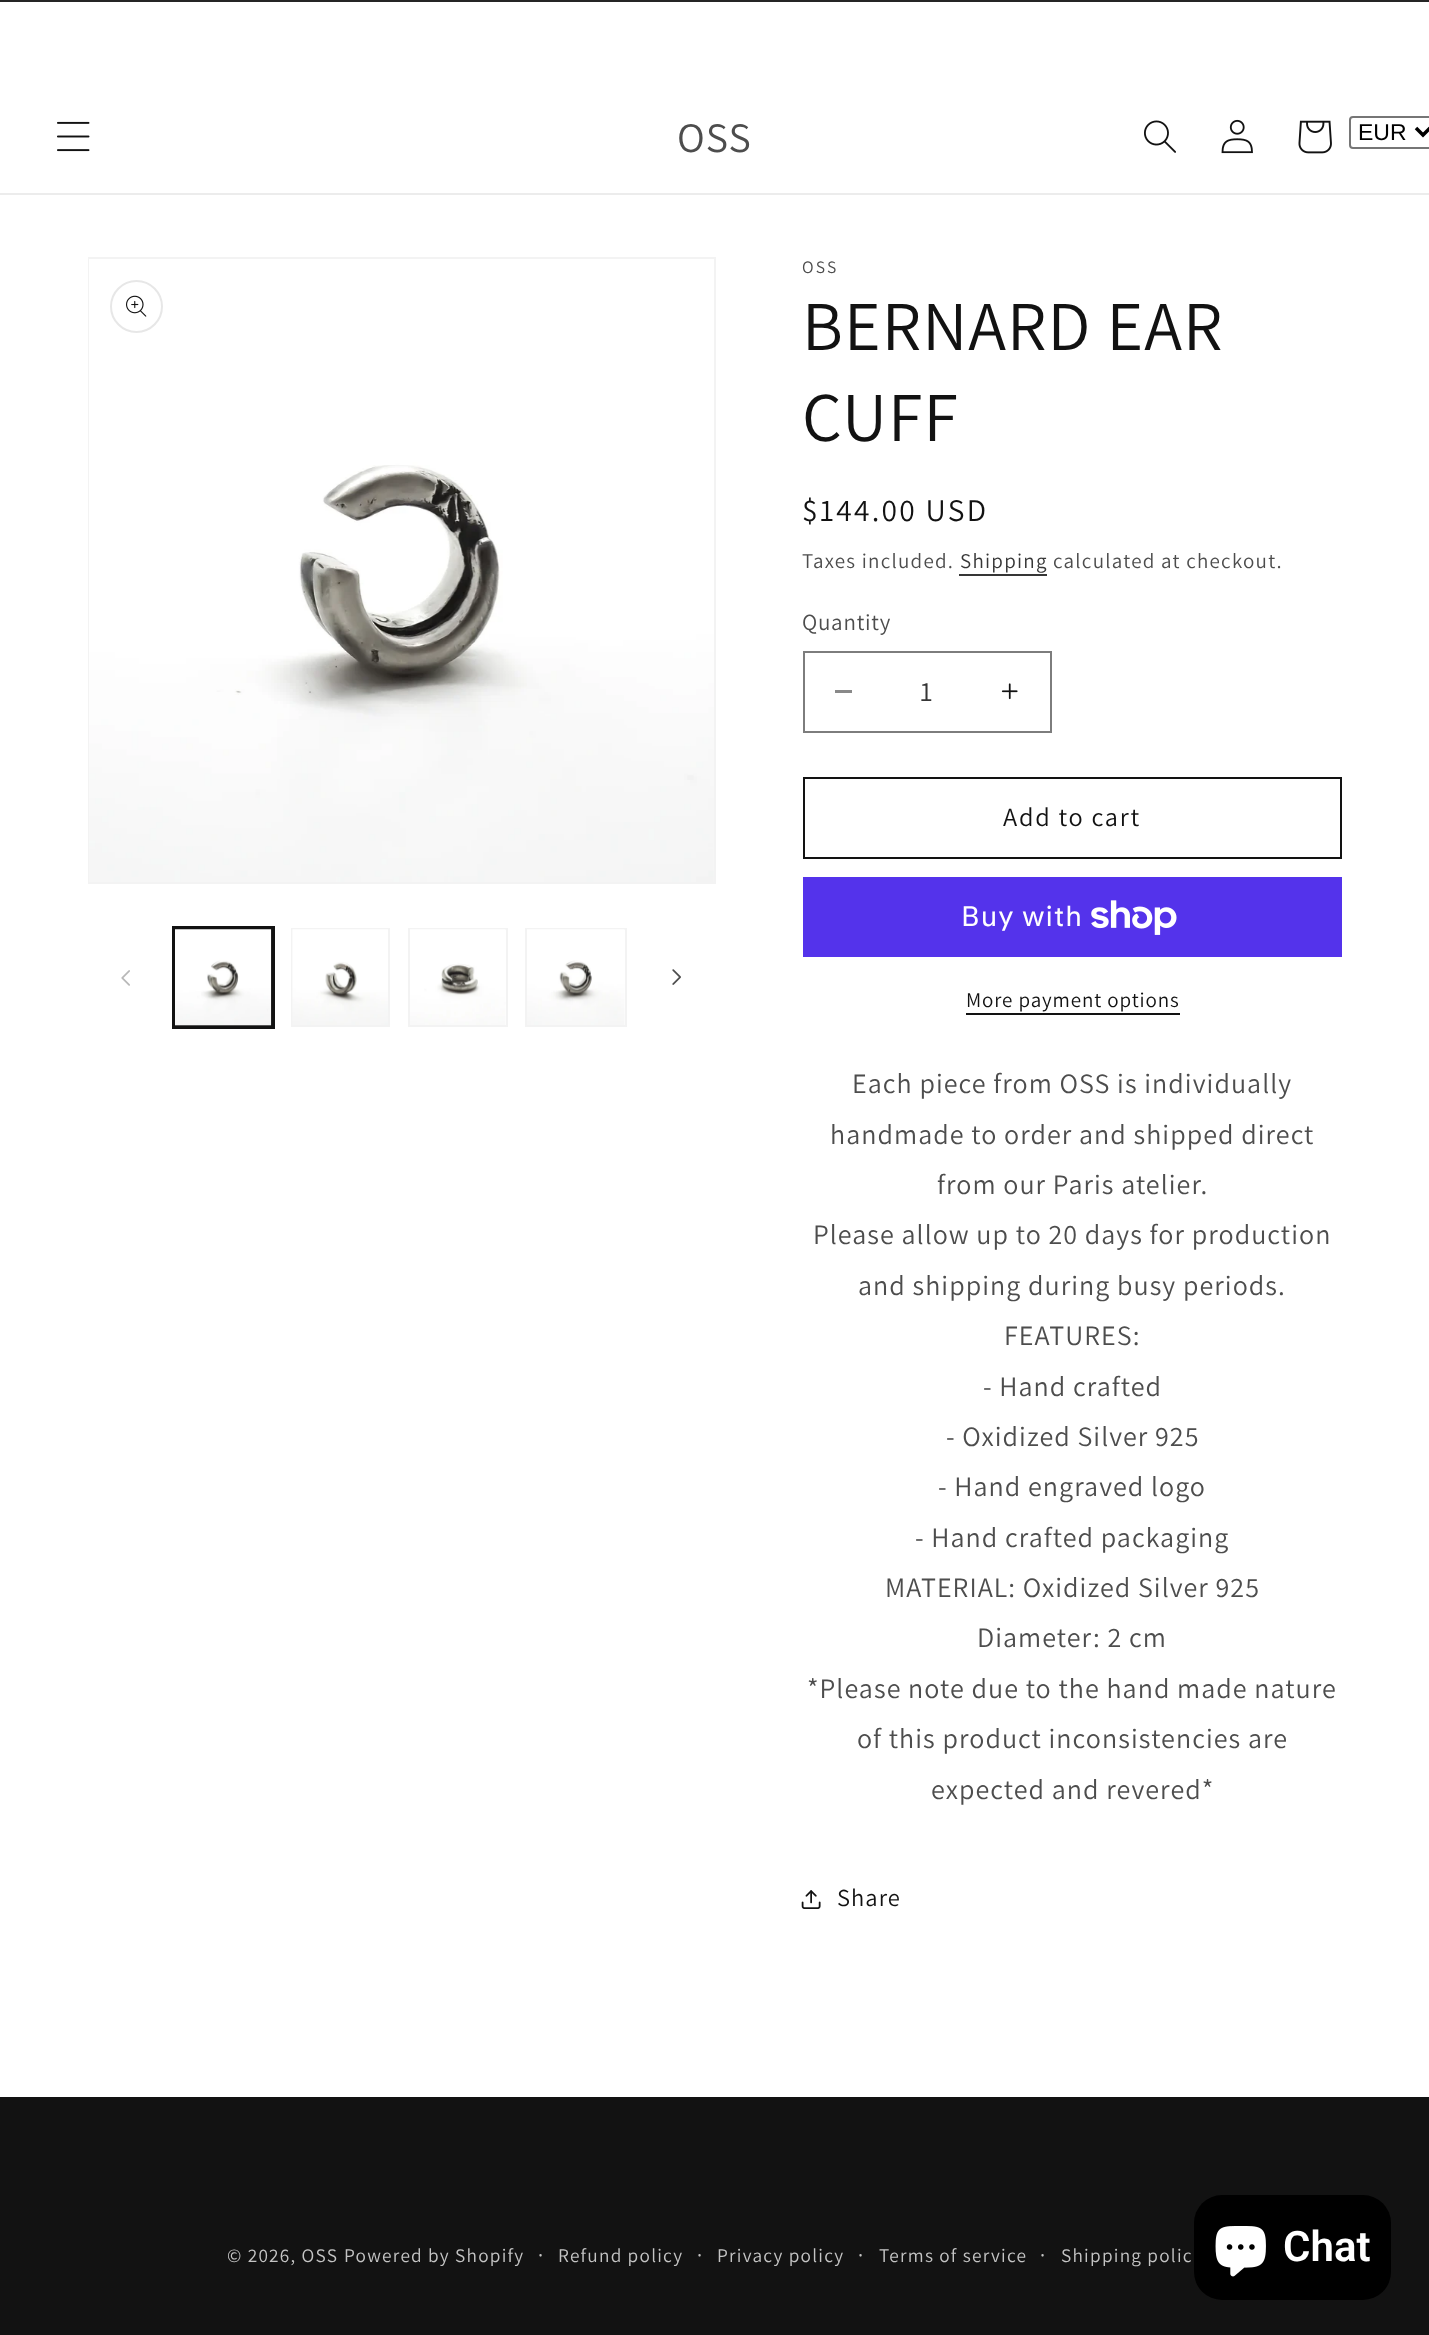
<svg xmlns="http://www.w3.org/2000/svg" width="1429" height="2335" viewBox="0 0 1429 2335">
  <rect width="100%" height="100%" fill="#fff"/>
  <path d="M0 0h1429v2H0z" fill="#252525"/>
  <path d="M0 193h1429v2H0z" fill="#ececec"/>
  <image x="57" y="121" width="33" height="31" href="img/1.png"/>
  <image x="1144" y="120" width="32" height="33" href="img/2.png"/>
  <image x="1221" y="119" width="32" height="35" href="img/3.png"/>
  <image x="1298" y="120" width="34" height="34" href="img/4.png"/>
  <rect x="1350" y="117" width="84" height="31" rx="3" fill="none" stroke="#767676" stroke-width="2"/>
  <path d="M1416 128L1423 135L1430 128" fill="none" stroke="#000" stroke-width="3.5"/>
  <path d="M89 258h626v625H89z" fill="none" stroke="#f3f3f3" stroke-width="2"/>
  <image x="89" y="259" width="625" height="623" href="img/5.png"/>
  <circle cx="136.5" cy="306.5" r="25.5" fill="none" stroke="#e7e7e7" stroke-width="2"/>
  <image x="126" y="295" width="21" height="22" href="img/6.png"/>
  <image x="121" y="970" width="9" height="16" href="img/7.png"/>
  <path d="M173 927h101v101H173z" fill="none" stroke="#121212" stroke-width="2"/>
  <path d="M174 929h98v97H174z" fill="none" stroke="#121212" stroke-width="2"/>
  <image x="175" y="929" width="97" height="97" href="img/8.png"/>
  <path d="M292 929h97v97H292z" fill="none" stroke="#f3f3f3" stroke-width="2"/>
  <image x="292" y="929" width="96" height="96" href="img/9.png"/>
  <path d="M409 929h98v97H409z" fill="none" stroke="#f3f3f3" stroke-width="2"/>
  <image x="410" y="929" width="96" height="96" href="img/10.png"/>
  <path d="M526 929h100v97H526z" fill="none" stroke="#f3f3f3" stroke-width="2"/>
  <image x="527" y="929" width="98" height="96" href="img/11.png"/>
  <image x="672" y="969" width="9" height="16" href="img/12.png"/>
  <path d="M959 574h88v2H959z" fill="#363636"/>
  <path d="M835 690h17v3H835z" fill="#898989"/>
  <image x="1001" y="683" width="17" height="17" href="img/13.png"/>
  <path d="M804 652h247v80H804z" fill="none" stroke="#7d7d7d" stroke-width="2"/>
  <path d="M804 778h537v80H804z" fill="none" stroke="#121212" stroke-width="2"/>
  <path d="M803 877h539v80H803z" fill="#5433eb"/>
  <image x="1091" y="900" width="86" height="35" href="img/14.png"/>
  <path d="M966 1013h214v2H966z" fill="#121212"/>
  <image x="801" y="1890" width="20" height="19" href="img/15.png"/>
  <path d="M0 2097h1429v238H0z" fill="#121212"/>
  <rect x="1194" y="2195" width="197" height="105" rx="28" fill="#000"/>
  <image x="1215" y="2226" width="51" height="51" href="img/16.png"/>
  <text x="677" y="152" font-family="Assistant" font-size="42" letter-spacing="1.05" fill="#4d4d4d">OSS</text>
  <text x="1358" y="140" font-family="Liberation Sans" font-size="23" fill="#000">EUR</text>
  <text x="802" y="273" font-family="Assistant" font-size="17.5" letter-spacing="2.25" fill="#4d4d4d">OSS</text>
  <g font-family="Assistant" font-size="70" letter-spacing="1.05" fill="#121212">
    <text x="802" y="350">BERNARD EAR</text>
    <text x="802" y="441">CUFF</text>
  </g>
  <text x="802" y="521" font-family="Assistant" font-size="31.5" letter-spacing="2.25" fill="#121212">$144.00 USD</text>
  <text x="802" y="568" font-family="Assistant" font-size="21" letter-spacing="1.25" fill="#4d4d4d">Taxes included.</text>
  <text x="960" y="568" font-family="Assistant" font-size="21" letter-spacing="1.25" fill="#363636">Shipping</text>
  <text x="1053" y="568" font-family="Assistant" font-size="21" letter-spacing="1.25" fill="#4d4d4d">calculated at checkout.</text>
  <text x="802" y="630" font-family="Assistant" font-size="23" letter-spacing="0.75" fill="#4d4d4d">Quantity</text>
  <text x="920" y="701" font-family="Assistant" font-size="28" fill="#363636">1</text>
  <text x="1003" y="826" font-family="Assistant" font-size="26.25" letter-spacing="1.75" fill="#121212">Add to cart</text>
  <text x="961" y="926" font-family="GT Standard" font-size="28" letter-spacing="1.05" fill="#fff">Buy with</text>
  <text x="966" y="1007" font-family="Assistant" font-size="21" letter-spacing="0.9" fill="#121212">More payment options</text>
  <g font-family="Assistant" font-size="28" letter-spacing="1.05" fill="#4d4d4d">
    <text x="852" y="1093">Each piece from OSS is individually</text>
    <text x="830" y="1144">handmade to order and shipped direct</text>
    <text x="937" y="1194">from our Paris atelier.</text>
    <text x="813" y="1244">Please allow up to 20 days for production</text>
    <text x="858" y="1295">and shipping during busy periods.</text>
    <text x="1004" y="1345">FEATURES:</text>
    <text x="983" y="1396">- Hand crafted</text>
    <text x="946" y="1446">- Oxidized Silver 925</text>
    <text x="938" y="1496">- Hand engraved logo</text>
    <text x="915" y="1547">- Hand crafted packaging</text>
    <text x="885" y="1597">MATERIAL: Oxidized Silver 925</text>
    <text x="977" y="1647">Diameter: 2 cm</text>
    <text x="807" y="1698">*Please note due to the hand made nature</text>
    <text x="857" y="1748">of this product inconsistencies are</text>
    <text x="931" y="1799">expected and revered*</text>
  </g>
  <text x="837" y="1906" font-family="Assistant" font-size="24.5" letter-spacing="1.05" fill="#121212">Share</text>
  <g font-family="Assistant" font-size="19.25" letter-spacing="1.25" fill="#c4c4c4">
    <text x="227" y="2262">© 2026, OSS</text>
    <text x="344" y="2262">Powered by Shopify</text>
  </g>
  <text x="538" y="2262" font-family="Assistant" font-size="21" letter-spacing="1.25" fill="#c4c4c4">·</text>
  <text x="558" y="2262" font-family="Assistant" font-size="19.25" letter-spacing="1.25" fill="#c4c4c4">Refund policy</text>
  <text x="697" y="2262" font-family="Assistant" font-size="21" letter-spacing="1.25" fill="#c4c4c4">·</text>
  <text x="717" y="2262" font-family="Assistant" font-size="19.25" letter-spacing="1.25" fill="#c4c4c4">Privacy policy</text>
  <text x="858" y="2262" font-family="Assistant" font-size="21" letter-spacing="1.25" fill="#c4c4c4">·</text>
  <text x="879" y="2262" font-family="Assistant" font-size="19.25" letter-spacing="1.25" fill="#c4c4c4">Terms of service</text>
  <text x="1040" y="2262" font-family="Assistant" font-size="21" letter-spacing="1.25" fill="#c4c4c4">·</text>
  <text x="1061" y="2262" font-family="Assistant" font-size="19.25" letter-spacing="1.25" fill="#c4c4c4">Shipping polic</text>
  <text x="1283" y="2261" font-family="Roboto" font-size="42" font-weight="600" fill="#fff">Chat</text>
</svg>
